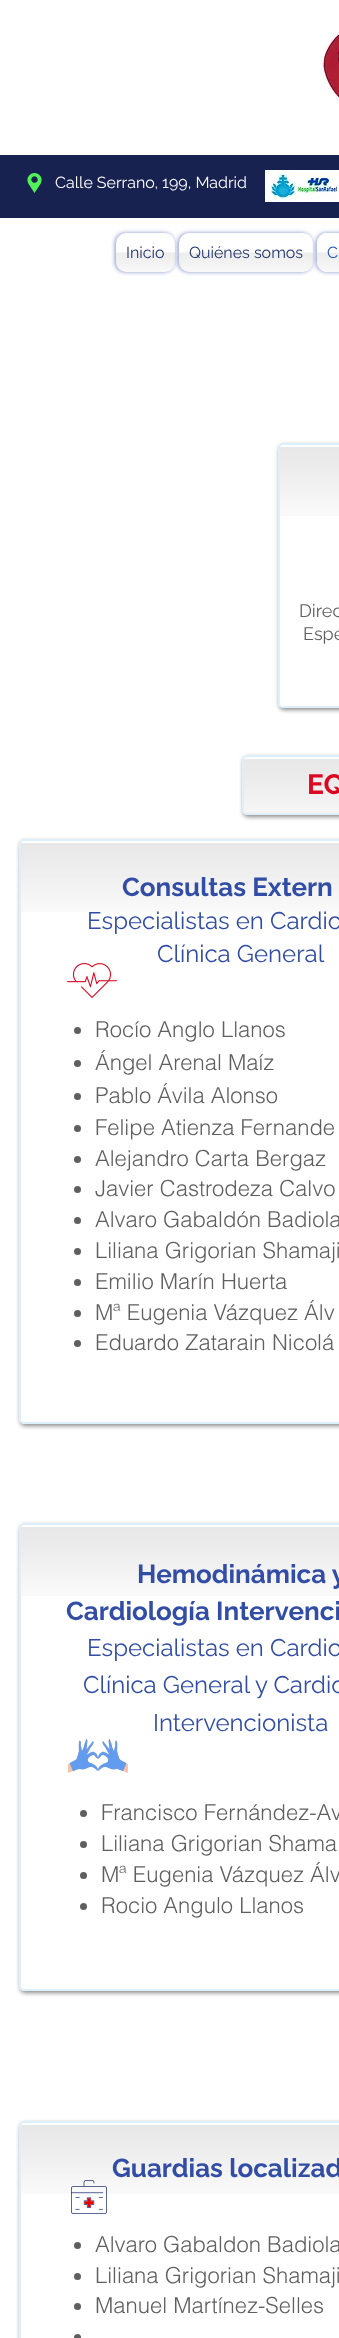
<svg xmlns="http://www.w3.org/2000/svg" width="339" height="2338" viewBox="0 0 339 2338">
  <defs>
    <clipPath id="clip1"><path d="M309 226H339V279H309ZM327 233H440C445.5 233 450 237.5 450 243V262C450 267.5 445.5 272 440 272H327C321.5 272 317 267.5 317 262V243C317 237.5 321.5 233 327 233Z" clip-rule="evenodd"/></clipPath>
  </defs>
  <rect width="100%" height="100%" fill="#fff"/>
  <image x="320" y="31" width="19" height="70" href="img/1.png"/>
  <path d="M0 155h339v63H0z" fill="#182251"/>
  <image x="27" y="173" width="15" height="20" href="img/2.png"/>
  <image x="265" y="170" width="74" height="32" href="img/3.png"/>
  <rect x="115" y="233" width="59" height="39" rx="10" fill="#324da699" filter="blur(2px)"/>
  <rect x="116" y="233" width="59" height="39" rx="10" fill="#fff"/>
  <image x="116" y="252" width="59" height="20" href="img/4.png"/>
  <rect x="178" y="233" width="134" height="39" rx="10" fill="#324da699" filter="blur(2px)"/>
  <rect x="179" y="233" width="134" height="39" rx="10" fill="#fff"/>
  <image x="179" y="252" width="134" height="20" href="img/5.png"/>
  <g clip-path="url(#clip1)">
    <rect x="316" y="233" width="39" height="39" rx="10" fill="#324da699" filter="blur(2px)"/>
  </g>
  <rect x="317" y="233" width="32" height="39" rx="10" fill="#fffffff7"/>
  <image x="317" y="252" width="22" height="20" href="img/6.png"/>
  <rect x="279" y="445" width="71" height="265" rx="5" fill="#605e5eb8" filter="blur(2px)"/>
  <rect x="278" y="443" width="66" height="265" rx="5" fill="#fff"/>
  <image x="278" y="447" width="61" height="69" href="img/7.png"/>
  <rect x="279" y="444" width="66" height="263" rx="4" fill="none" stroke="#dceffa" stroke-width="2"/>
  <rect x="243" y="757" width="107" height="60" rx="5" fill="#605e5eb8" filter="blur(2px)"/>
  <rect x="242" y="755" width="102" height="60" rx="5" fill="#fff"/>
  <image x="242" y="759" width="97" height="56" href="img/8.png"/>
  <rect x="243" y="756" width="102" height="58" rx="4" fill="none" stroke="#dceffa" stroke-width="2"/>
  <rect x="20" y="841" width="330" height="585" rx="5" fill="#605e5eb8" filter="blur(2px)"/>
  <rect x="19" y="839" width="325" height="585" rx="5" fill="#fff"/>
  <image x="19" y="843" width="320" height="69" href="img/9.png"/>
  <rect x="20" y="840" width="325" height="583" rx="4" fill="none" stroke="#dceffa" stroke-width="2"/>
  <circle cx="77.5" cy="1030.5" r="3.5" fill="#605e5e"/>
  <circle cx="77.5" cy="1063.5" r="3.5" fill="#605e5e"/>
  <circle cx="77.5" cy="1096.5" r="3.5" fill="#605e5e"/>
  <circle cx="77.5" cy="1128.5" r="3.5" fill="#605e5e"/>
  <circle cx="77.5" cy="1159.5" r="3.5" fill="#605e5e"/>
  <circle cx="77.5" cy="1189.5" r="3.5" fill="#605e5e"/>
  <circle cx="77.5" cy="1220.5" r="3.5" fill="#605e5e"/>
  <circle cx="77.5" cy="1251.5" r="3.5" fill="#605e5e"/>
  <circle cx="77.5" cy="1282.5" r="3.5" fill="#605e5e"/>
  <circle cx="77.5" cy="1313.5" r="3.5" fill="#605e5e"/>
  <circle cx="77.5" cy="1343.5" r="3.5" fill="#605e5e"/>
  <image x="67" y="963" width="50" height="35" href="img/10.png"/>
  <rect x="20" y="1525" width="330" height="468" rx="5" fill="#605e5eb8" filter="blur(2px)"/>
  <rect x="19" y="1523" width="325" height="468" rx="5" fill="#fff"/>
  <image x="19" y="1527" width="320" height="69" href="img/9.png"/>
  <rect x="20" y="1524" width="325" height="466" rx="4" fill="none" stroke="#dceffa" stroke-width="2"/>
  <circle cx="83.5" cy="1813.5" r="3.5" fill="#605e5e"/>
  <circle cx="83.5" cy="1844.5" r="3.5" fill="#605e5e"/>
  <circle cx="83.5" cy="1875.5" r="3.5" fill="#605e5e"/>
  <circle cx="83.5" cy="1906.5" r="3.5" fill="#605e5e"/>
  <image x="68" y="1739" width="60" height="34" href="img/11.png"/>
  <rect x="20" y="2123" width="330" height="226" rx="5" fill="#605e5eb8" filter="blur(2px)"/>
  <rect x="19" y="2121" width="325" height="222" rx="5" fill="#fff"/>
  <image x="19" y="2125" width="320" height="69" href="img/9.png"/>
  <rect x="20" y="2122" width="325" height="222" rx="4" fill="none" stroke="#dceffa" stroke-width="2"/>
  <image x="71" y="2180" width="36" height="34" href="img/12.png"/>
  <circle cx="77.5" cy="2245.5" r="3.5" fill="#605e5e"/>
  <circle cx="77.5" cy="2276.5" r="3.5" fill="#605e5e"/>
  <circle cx="77.5" cy="2306.5" r="3.5" fill="#605e5e"/>
  <circle cx="77.5" cy="2337.5" r="3.5" fill="#605e5e"/>
  <text x="55" y="188" font-family="Raleway" font-size="16" fill="#fff">Calle Serrano, 199, Madrid</text>
  <g font-family="Raleway" font-size="16" fill="#21336f">
    <text x="126" y="258">Inicio</text>
    <text x="189" y="258">Quiénes somos</text>
  </g>
  <text x="327" y="258" font-family="Raleway" font-size="16" fill="#1851ba">C</text>
  <g font-family="Raleway" font-size="18" fill="#605e5e">
    <text x="299" y="617">Direc</text>
    <text x="303" y="640">Espe</text>
  </g>
  <text x="307" y="794" font-family="Raleway" font-size="28" font-weight="bold" fill="#db0723">EQ</text>
  <text x="122" y="896" font-family="'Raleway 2'" font-size="26" font-weight="bold" fill="#324da6">Consultas Extern</text>
  <g font-family="Raleway" font-size="24" fill="#324da6">
    <text x="87" y="929">Especialistas en Cardio</text>
    <text x="157" y="962">Clínica General</text>
  </g>
  <g font-family="helvetica" font-size="22" font-weight="300" fill="#605e5e">
    <text x="95" y="1037">Rocío Anglo Llanos</text>
    <text x="95" y="1070">Ángel Arenal Maíz</text>
    <text x="95" y="1103">Pablo Ávila Alonso</text>
    <text x="95" y="1135">Felipe Atienza Fernande</text>
    <text x="95" y="1166">Alejandro Carta Bergaz</text>
    <text x="95" y="1196">Javier Castrodeza Calvo</text>
    <text x="95" y="1227">Alvaro Gabaldón Badiola</text>
    <text x="95" y="1258">Liliana Grigorian Shamaji</text>
    <text x="95" y="1289">Emilio Marín Huerta</text>
    <text x="95" y="1320">Mª Eugenia Vázquez Álv</text>
    <text x="95" y="1350">Eduardo Zatarain Nicolá</text>
  </g>
  <g font-family="'Raleway 2'" font-size="26" font-weight="bold" fill="#324da6">
    <text x="137" y="1583">Hemodinámica y</text>
    <text x="66" y="1620">Cardiología Intervenci</text>
  </g>
  <g font-family="Raleway" font-size="24" fill="#324da6">
    <text x="87" y="1656">Especialistas en Cardio</text>
    <text x="83" y="1693">Clínica General y Cardio</text>
    <text x="153" y="1731">Intervencionista</text>
  </g>
  <g font-family="helvetica" font-size="22" font-weight="300" fill="#605e5e">
    <text x="101" y="1820">Francisco Fernández-Av</text>
    <text x="101" y="1851">Liliana Grigorian Shama</text>
    <text x="101" y="1882">Mª Eugenia Vázquez Álv</text>
    <text x="101" y="1913">Rocio Angulo Llanos</text>
  </g>
  <text x="112" y="2177" font-family="'Raleway 2'" font-size="26" font-weight="bold" fill="#324da6">Guardias localizad</text>
  <g font-family="helvetica" font-size="22" font-weight="300" fill="#605e5e">
    <text x="95" y="2252">Alvaro Gabaldon Badiola</text>
    <text x="95" y="2283">Liliana Grigorian Shamaji</text>
    <text x="95" y="2313">Manuel Martínez-Selles</text>
  </g>
</svg>
